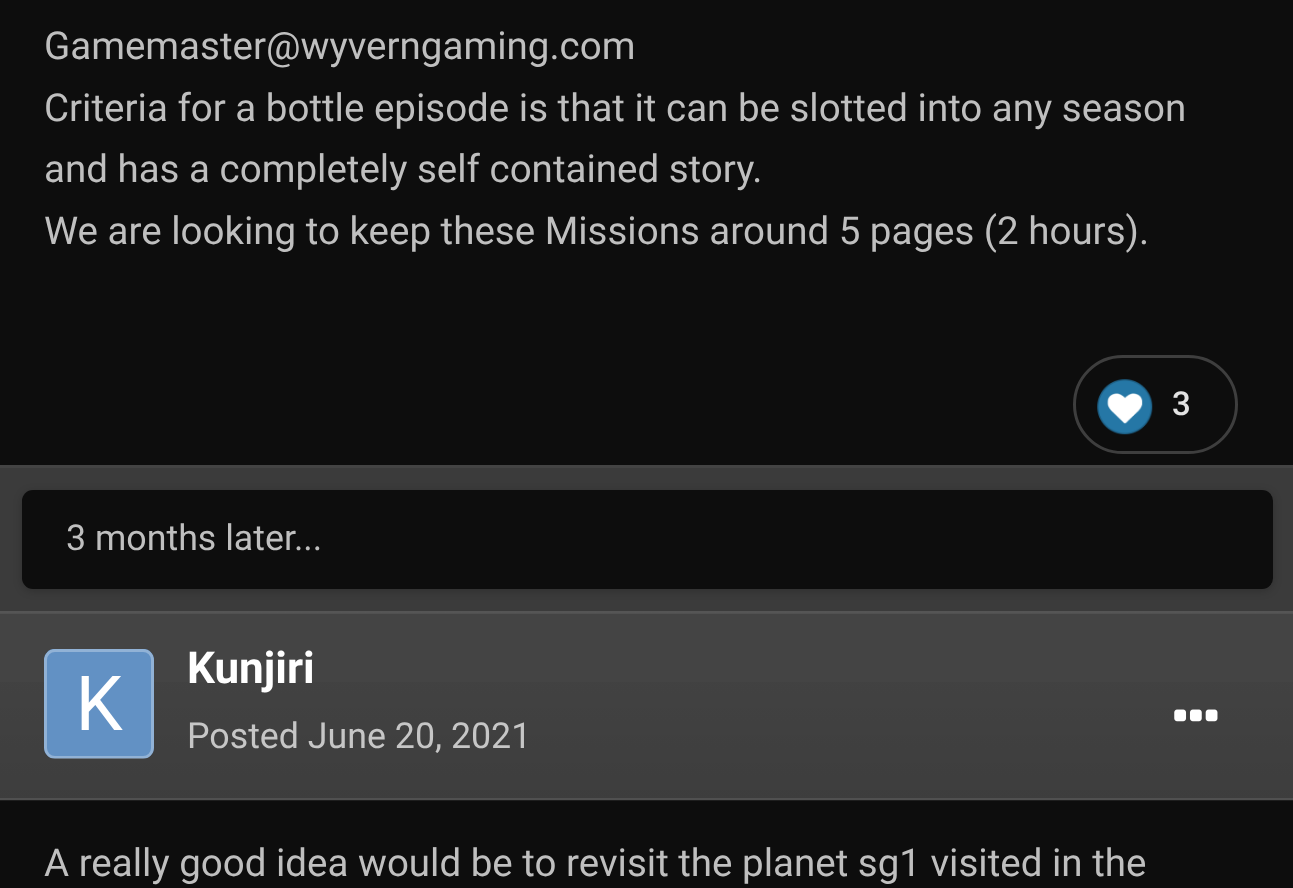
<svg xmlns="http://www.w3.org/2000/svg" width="1293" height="888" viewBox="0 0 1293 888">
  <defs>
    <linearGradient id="g1" gradientUnits="userSpaceOnUse" x1="648" y1="429" x2="648" y2="613"><stop offset="0" stop-color="#525252"/><stop offset="1" stop-color="#4a4a4a"/></linearGradient>
    <linearGradient id="g2" gradientUnits="userSpaceOnUse" x1="648" y1="613" x2="648" y2="798"><stop offset="0" stop-color="#000" stop-opacity="0"/><stop offset="1" stop-color="#000" stop-opacity="0.1"/></linearGradient>
  </defs>
  <rect width="100%" height="100%" fill="#0d0d0d"/>
  <rect x="1074.5" y="356.5" width="162" height="96" rx="48" fill="none" stroke="#3e3e3e" stroke-width="3"/>
  <image x="1097" y="379" width="56" height="56" href="img/1.png"/>
  <path d="M0 468h1293v143H0z" fill="#3b3b3b"/>
  <path d="M0 465h1293v3H0z" fill="#434343"/>
  <path d="M0 613h1293v1H0z" fill="#bfbfbf0f"/>
  <rect x="22" y="492" width="1251" height="99" rx="11" fill="#00000033" filter="blur(4px)"/>
  <rect x="22" y="490" width="1251" height="99" rx="11" fill="#0d0d0d"/>
  <path d="M0 613h1293v187H0z" fill="#575757bf"/>
  <path d="M0 611h1293v2H0z" fill="url(#g1)"/>
  <path d="M0 682h1293v116H0z" fill="url(#g2)"/>
  <path d="M0 611h1293v3H0z" fill="#bfbfbf1a"/>
  <path d="M0 798h1293v3H0z" fill="#bfbfbf1a"/>
  <rect x="44" y="649" width="110" height="110" rx="11" fill="#0d0d0d"/>
  <image x="44" y="649" width="110" height="110" href="img/2.png"/>
  <rect x="45.5" y="650.5" width="107" height="107" rx="9.5" fill="none" stroke="#ffffff4d" stroke-width="3"/>
  <image x="1174" y="709" width="44" height="13" href="img/3.png"/>
  <g font-family="Roboto" font-size="38.5" fill="#bfbfbf">
    <text x="44" y="59">Gamemaster@wyverngaming.com</text>
    <text x="44" y="121">Criteria for a bottle episode is that it can be slotted into any season</text>
    <text x="44" y="182">and has a completely self contained story.</text>
    <text x="44" y="244">We are looking to keep these Missions around 5 pages (2 hours).</text>
  </g>
  <text x="1172" y="415" font-family="Roboto" font-size="33" font-weight="500" fill="#e3e3e3">3</text>
  <text x="66" y="550" font-family="Roboto" font-size="35.75" fill="#bfbfbf">3 months later...</text>
  <text x="187" y="683" font-family="Roboto" font-size="44" font-weight="bold" fill="#fff">Kunjiri</text>
  <text x="187" y="748" font-family="Roboto" font-size="35.75" fill="#c6c6c6">Posted June 20, 2021</text>
  <text x="44" y="876" font-family="Roboto" font-size="38.5" fill="#bfbfbf">A really good idea would be to revisit the planet sg1 visited in the</text>
</svg>
